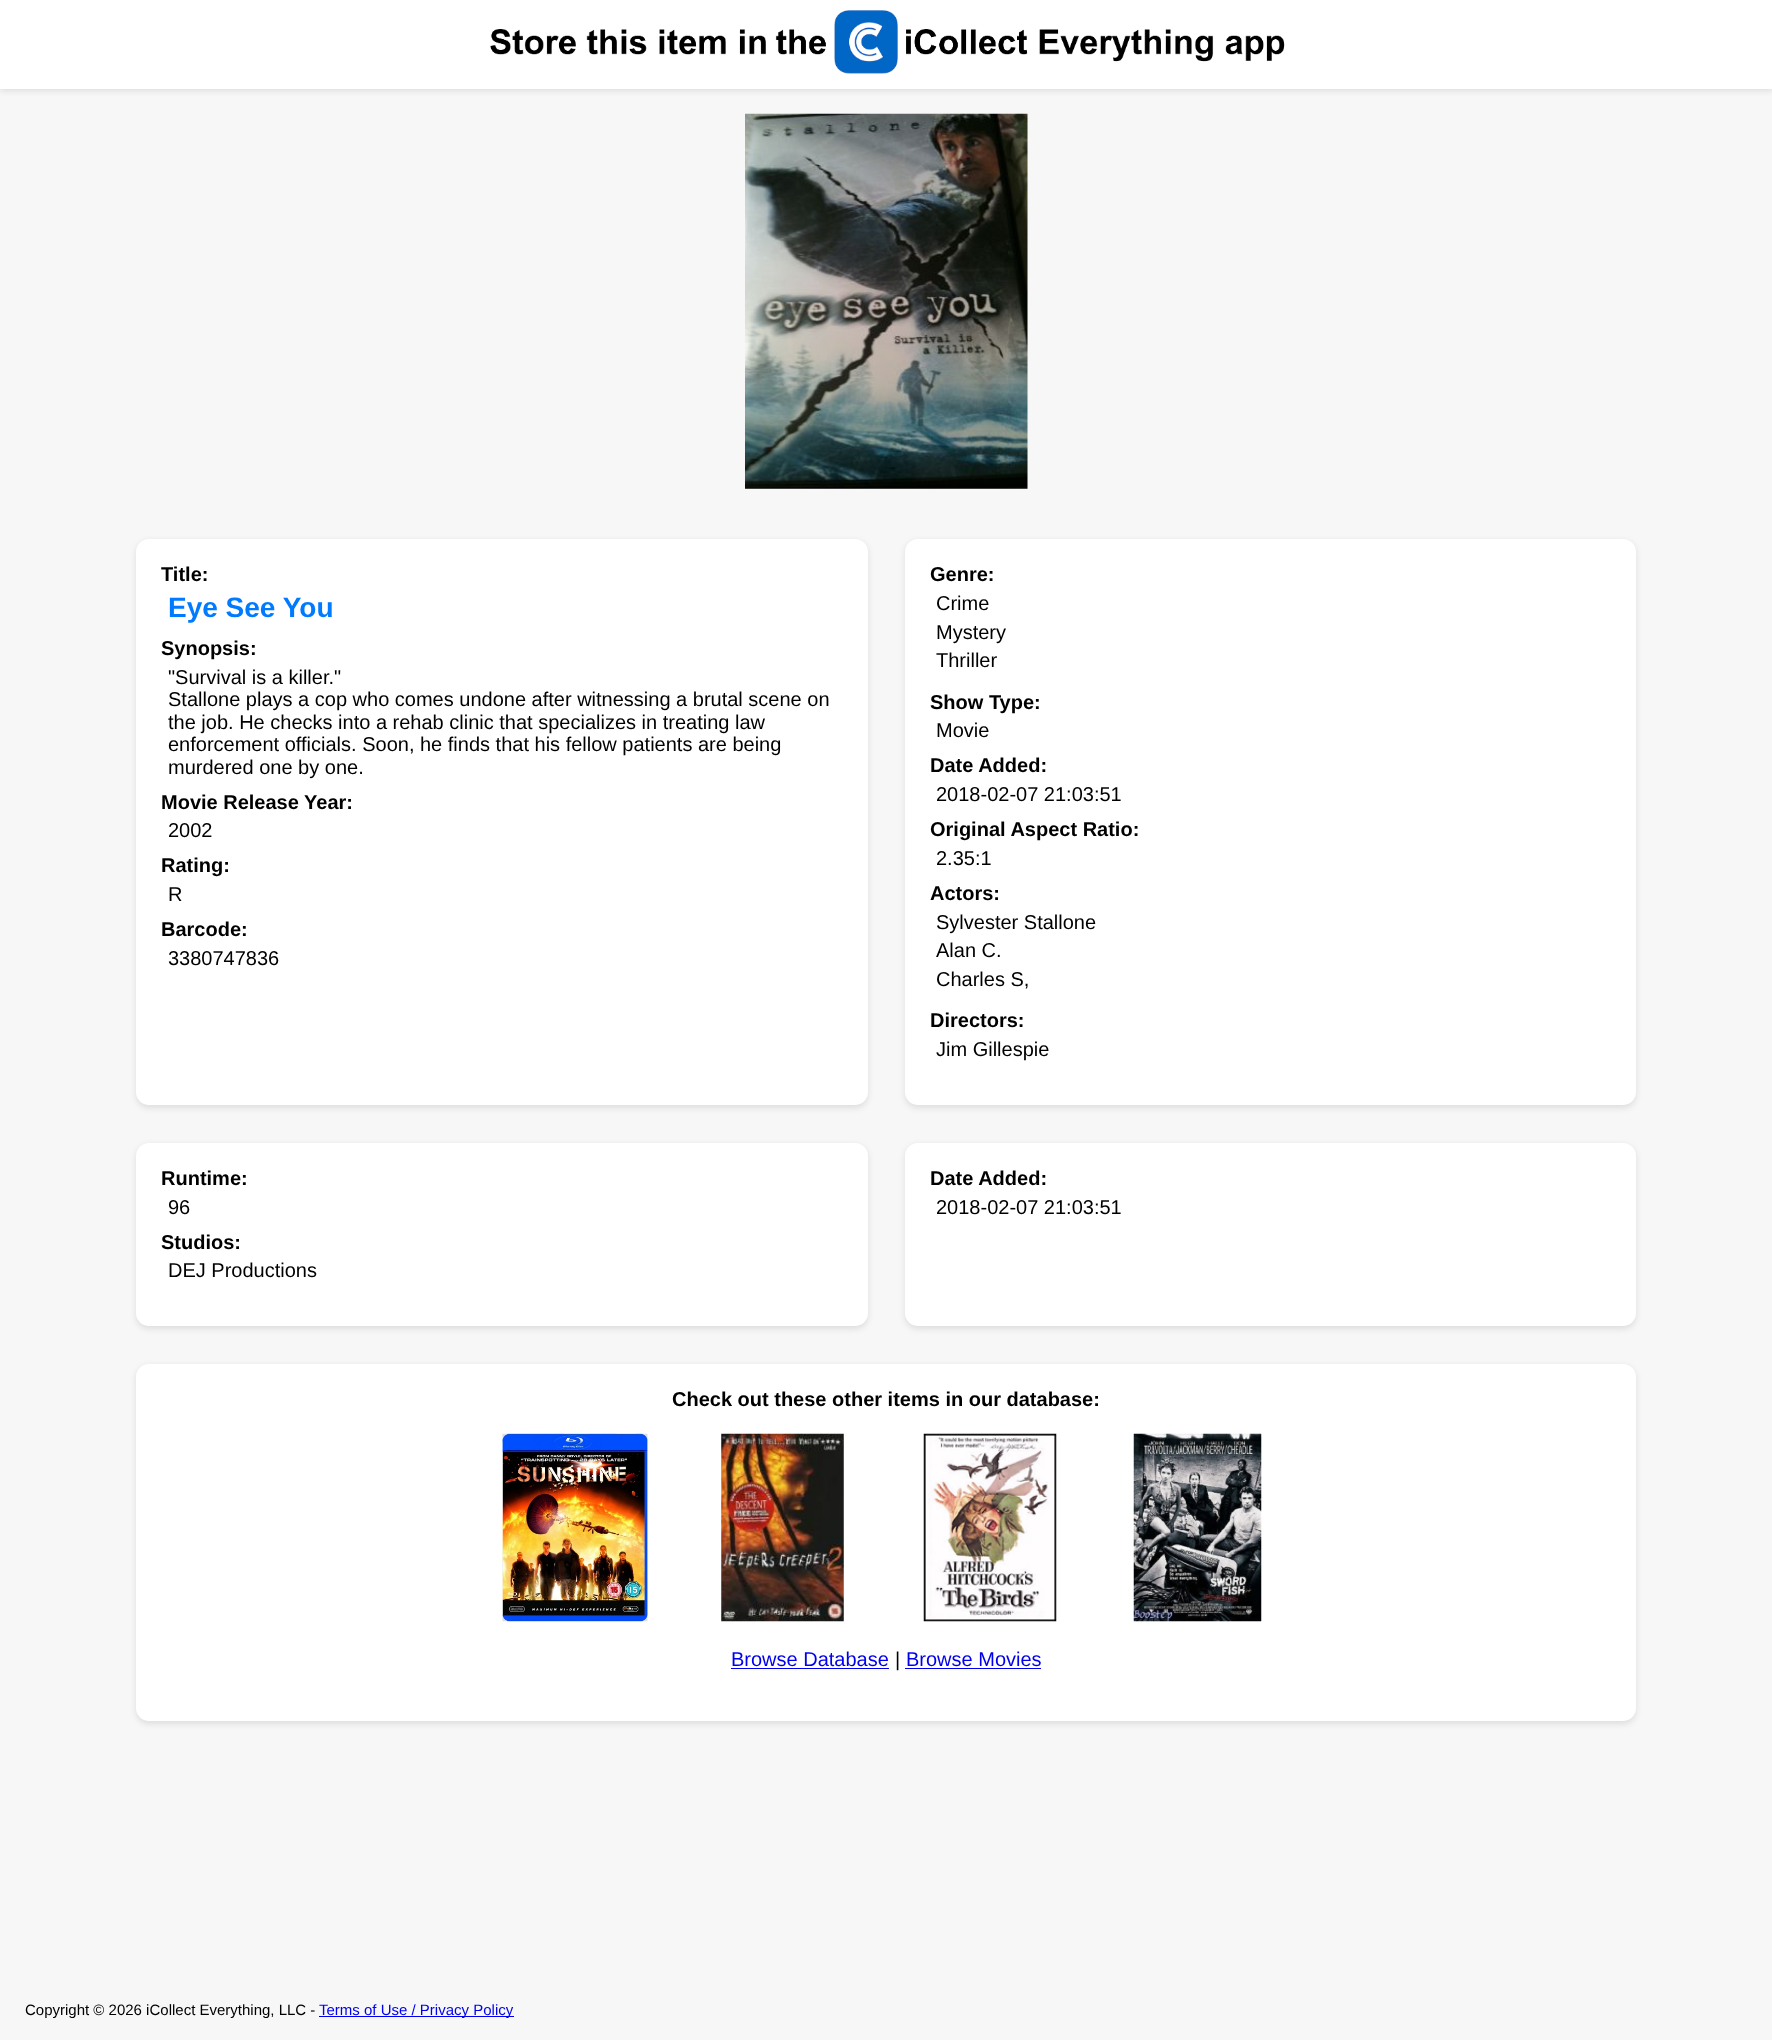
<svg xmlns="http://www.w3.org/2000/svg" width="1772" height="2040" viewBox="0 0 1772 2040">
  <rect width="100%" height="100%" fill="#f7f7f7"/>
  <path d="M0 3h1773v88H0z" fill="#0000001a" filter="blur(3px)"/>
  <path d="M0 0h1772v89H0z" fill="#fff"/>
  <image x="490" y="10" width="795" height="64" href="img/1.png"/>
  <image x="745" y="113" width="283" height="376" href="img/2.png"/>
  <rect x="136" y="541" width="732" height="567" rx="13" fill="#0000001a" filter="blur(3px)"/>
  <rect x="136" y="539" width="732" height="566" rx="13" fill="#fff"/>
  <rect x="905" y="541" width="731" height="567" rx="13" fill="#0000001a" filter="blur(3px)"/>
  <rect x="905" y="539" width="731" height="566" rx="13" fill="#fff"/>
  <rect x="136" y="1145" width="732" height="184" rx="13" fill="#0000001a" filter="blur(3px)"/>
  <rect x="136" y="1143" width="732" height="183" rx="13" fill="#fff"/>
  <rect x="905" y="1145" width="731" height="184" rx="13" fill="#0000001a" filter="blur(3px)"/>
  <rect x="905" y="1143" width="731" height="183" rx="13" fill="#fff"/>
  <rect x="136" y="1366" width="1500" height="358" rx="13" fill="#0000001a" filter="blur(3px)"/>
  <rect x="136" y="1364" width="1500" height="357" rx="13" fill="#fff"/>
  <image x="502" y="1433" width="146" height="189" href="img/3.png"/>
  <image x="721" y="1433" width="123" height="189" href="img/4.png"/>
  <image x="923" y="1433" width="134" height="189" href="img/5.png"/>
  <image x="1133" y="1433" width="129" height="189" href="img/6.png"/>
  <path d="M731 1668h158v1H731z" fill="#00e"/>
  <path d="M905 1668h136v1H905z" fill="#00e"/>
  <path d="M319 2016h195v1H319z" fill="#00e"/>
  <text x="161" y="581" font-family="Liberation Sans" font-size="20" font-weight="bold" fill="#000">Title:</text>
  <text x="168" y="617" font-family="Liberation Sans" font-size="28" font-weight="bold" fill="#007bff">Eye See You</text>
  <text x="161" y="655" font-family="Liberation Sans" font-size="20" font-weight="bold" fill="#000">Synopsis:</text>
  <g font-family="Liberation Sans" font-size="20" fill="#000">
    <text x="168" y="684">"Survival is a killer."</text>
    <text x="168" y="706">Stallone plays a cop who comes undone after witnessing a brutal scene on</text>
    <text x="168" y="729">the job. He checks into a rehab clinic that specializes in treating law</text>
    <text x="168" y="751">enforcement officials. Soon, he finds that his fellow patients are being</text>
    <text x="168" y="774">murdered one by one.</text>
  </g>
  <text x="161" y="809" font-family="Liberation Sans" font-size="20" font-weight="bold" fill="#000">Movie Release Year:</text>
  <text x="168" y="837" font-family="Liberation Sans" font-size="20" fill="#000">2002</text>
  <text x="161" y="872" font-family="Liberation Sans" font-size="20" font-weight="bold" fill="#000">Rating:</text>
  <text x="168" y="901" font-family="Liberation Sans" font-size="20" fill="#000">R</text>
  <text x="161" y="936" font-family="Liberation Sans" font-size="20" font-weight="bold" fill="#000">Barcode:</text>
  <text x="168" y="965" font-family="Liberation Sans" font-size="20" fill="#000">3380747836</text>
  <text x="930" y="581" font-family="Liberation Sans" font-size="20" font-weight="bold" fill="#000">Genre:</text>
  <g font-family="Liberation Sans" font-size="20" fill="#000">
    <text x="936" y="610">Crime</text>
    <text x="936" y="639">Mystery</text>
    <text x="936" y="667">Thriller</text>
  </g>
  <text x="930" y="709" font-family="Liberation Sans" font-size="20" font-weight="bold" fill="#000">Show Type:</text>
  <text x="936" y="737" font-family="Liberation Sans" font-size="20" fill="#000">Movie</text>
  <text x="930" y="772" font-family="Liberation Sans" font-size="20" font-weight="bold" fill="#000">Date Added:</text>
  <text x="936" y="801" font-family="Liberation Sans" font-size="20" fill="#000">2018-02-07 21:03:51</text>
  <text x="930" y="836" font-family="Liberation Sans" font-size="20" font-weight="bold" fill="#000">Original Aspect Ratio:</text>
  <text x="936" y="865" font-family="Liberation Sans" font-size="20" fill="#000">2.35:1</text>
  <text x="930" y="900" font-family="Liberation Sans" font-size="20" font-weight="bold" fill="#000">Actors:</text>
  <g font-family="Liberation Sans" font-size="20" fill="#000">
    <text x="936" y="929">Sylvester Stallone</text>
    <text x="936" y="957">Alan C.</text>
    <text x="936" y="986">Charles S,</text>
  </g>
  <text x="930" y="1027" font-family="Liberation Sans" font-size="20" font-weight="bold" fill="#000">Directors:</text>
  <text x="936" y="1056" font-family="Liberation Sans" font-size="20" fill="#000">Jim Gillespie</text>
  <text x="161" y="1185" font-family="Liberation Sans" font-size="20" font-weight="bold" fill="#000">Runtime:</text>
  <text x="168" y="1214" font-family="Liberation Sans" font-size="20" fill="#000">96</text>
  <text x="161" y="1249" font-family="Liberation Sans" font-size="20" font-weight="bold" fill="#000">Studios:</text>
  <text x="168" y="1277" font-family="Liberation Sans" font-size="20" fill="#000">DEJ Productions</text>
  <text x="930" y="1185" font-family="Liberation Sans" font-size="20" font-weight="bold" fill="#000">Date Added:</text>
  <text x="936" y="1214" font-family="Liberation Sans" font-size="20" fill="#000">2018-02-07 21:03:51</text>
  <text x="672" y="1406" font-family="Liberation Sans" font-size="20" font-weight="bold" fill="#000">Check out these other items in our database:</text>
  <text x="731" y="1666" font-family="Liberation Sans" font-size="20" fill="#00e">Browse Database</text>
  <text x="895" y="1666" font-family="Liberation Sans" font-size="20" fill="#000">|</text>
  <text x="906" y="1666" font-family="Liberation Sans" font-size="20" fill="#00e">Browse Movies</text>
  <text x="25" y="2015" font-family="Liberation Sans" font-size="15" fill="#000">Copyright © 2026 iCollect Everything, LLC -</text>
  <text x="319" y="2015" font-family="Liberation Sans" font-size="15" fill="#00e">Terms of Use / Privacy Policy</text>
</svg>
